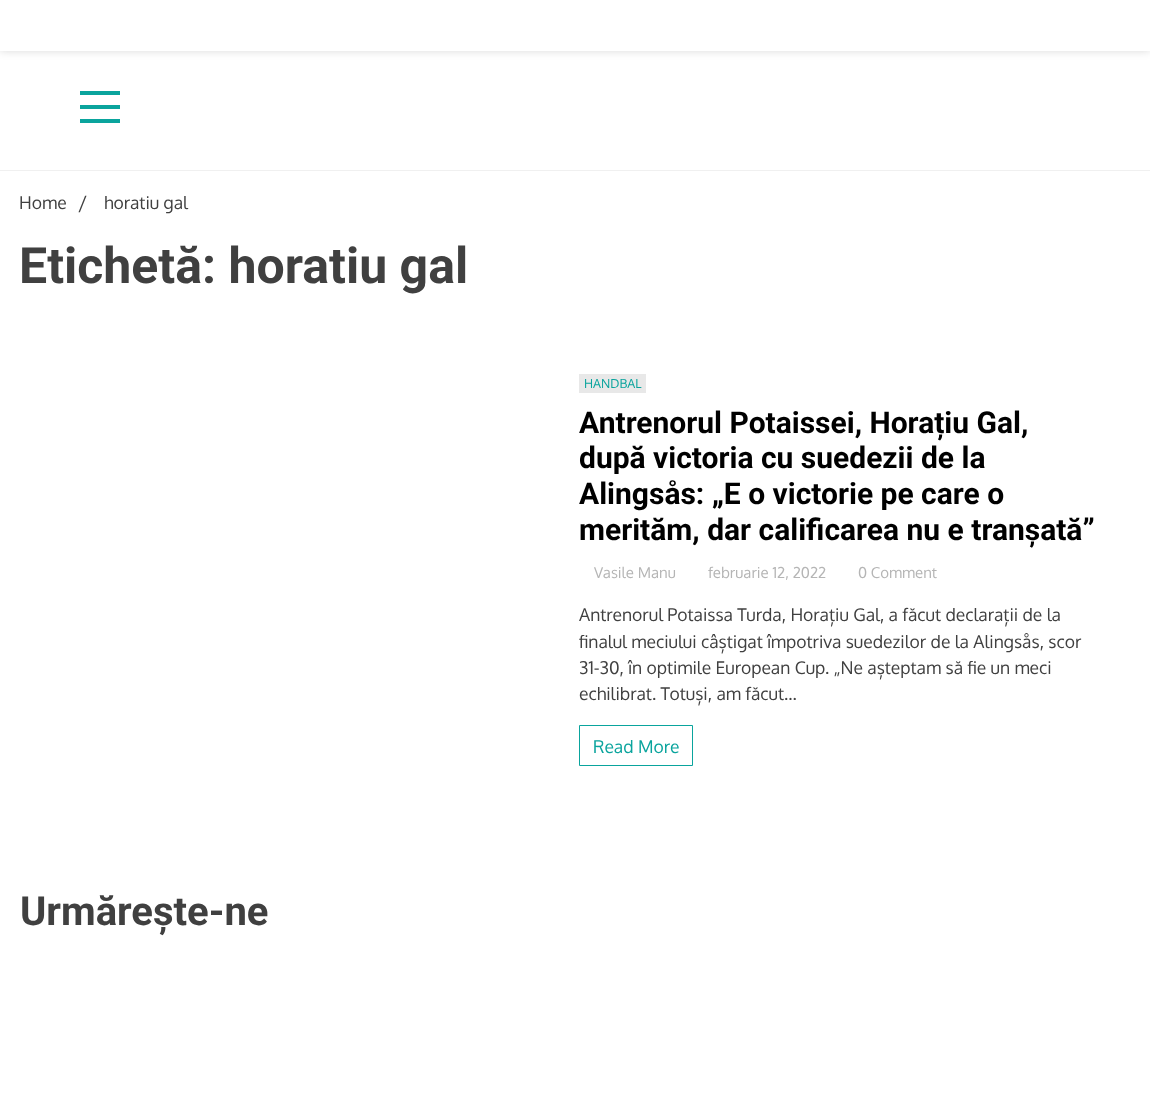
<svg xmlns="http://www.w3.org/2000/svg" width="1150" height="1107" viewBox="0 0 1150 1107">
  <rect width="100%" height="100%" fill="#fff"/>
  <path d="M-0.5 50.5h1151v120H-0.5z" fill="none" stroke="#f0f0f0"/>
  <path d="M0 0h1150v51H0z" fill="#00000026" filter="blur(4px)"/>
  <path d="M0 0h1150v51H0z" fill="#fff"/>
  <path d="M80 91h40v4H80z" fill="#0aa49d"/>
  <path d="M80 105h40v4H80z" fill="#0aa49d"/>
  <path d="M80 119h40v4H80z" fill="#0aa49d"/>
  <path d="M579 374h67v19H579z" fill="#e8e8e8"/>
  <path d="M579.5 725.5h113v40H579.5z" fill="none" stroke="#0aa49d"/>
  <text x="19" y="209" font-family="Oxygen" font-size="17.5" fill="#404040">Home</text>
  <text x="78" y="210" font-family="Oxygen" font-size="20" fill="#404040">/</text>
  <text x="104" y="209" font-family="Oxygen" font-size="17.5" fill="#404040">horatiu gal</text>
  <text x="19" y="283" font-family="Roboto" font-size="50" font-weight="bold" fill="#404040">Etichetă: horatiu gal</text>
  <text x="584" y="388" font-family="Oxygen" font-size="12.5" fill="#0aa49d">HANDBAL</text>
  <g font-family="Roboto" font-size="30" font-weight="bold" fill="#000">
    <text x="579" y="433">Antrenorul Potaissei, Horațiu Gal,</text>
    <text x="579" y="468">după victoria cu suedezii de la</text>
    <text x="579" y="504">Alingsås: „E o victorie pe care o</text>
    <text x="579" y="540">merităm, dar calificarea nu e tranșată”</text>
  </g>
  <g font-family="Oxygen" font-size="15" fill="#b5b5b5">
    <text x="594" y="578">Vasile Manu</text>
    <text x="708" y="578">februarie 12, 2022</text>
    <text x="858" y="578">0 Comment</text>
  </g>
  <g font-family="Oxygen" font-size="17.5" fill="#404040">
    <text x="579" y="621">Antrenorul Potaissa Turda, Horațiu Gal, a făcut declarații de la</text>
    <text x="579" y="648">finalul meciului câștigat împotriva suedezilor de la Alingsås, scor</text>
    <text x="579" y="674">31-30, în optimile European Cup. „Ne așteptam să fie un meci</text>
    <text x="579" y="700">echilibrat. Totuși, am făcut...</text>
  </g>
  <text x="593" y="753" font-family="Oxygen" font-size="17.5" fill="#0aa49d">Read More</text>
  <text x="20" y="925" font-family="Roboto" font-size="40" font-weight="bold" fill="#404040">Urmărește-ne</text>
</svg>
